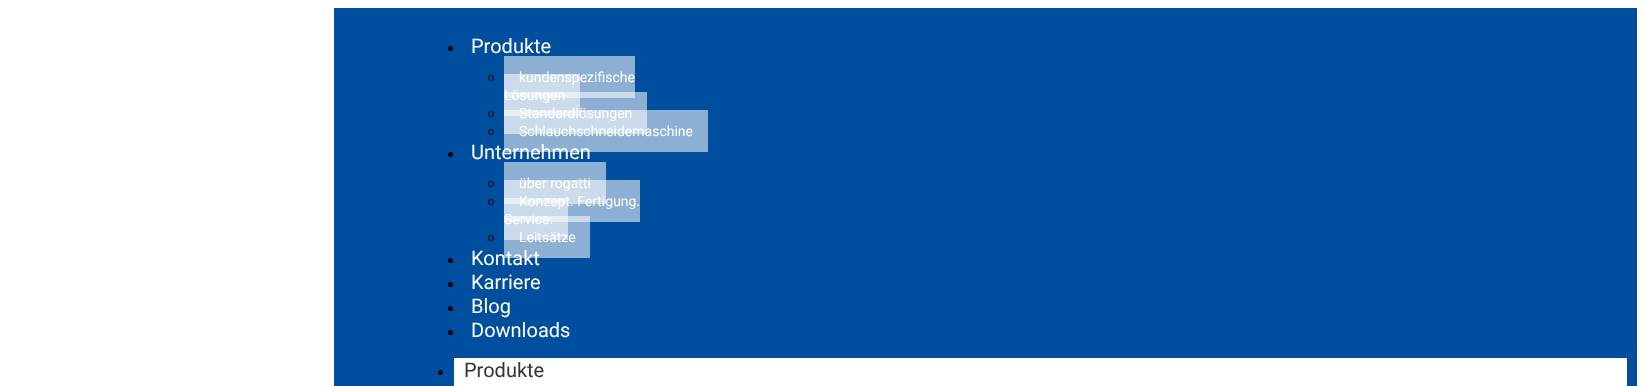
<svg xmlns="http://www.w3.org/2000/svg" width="1645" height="386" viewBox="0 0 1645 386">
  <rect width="100%" height="100%" fill="#fff"/>
  <path d="M334 8h1303v378H334z" fill="#004f9e"/>
  <path d="M504 98h76v18H504z" fill="#8cb0d3"/>
  <circle cx="450.5" cy="48.5" r="2.5" fill="#000"/>
  <circle cx="491" cy="78" r="2.5" fill="none" stroke="#000"/>
  <path d="M504 56h131v42H504z" fill="#8cb0d3"/>
  <path d="M504 74h76v24H504z" fill="#cbdbeb"/>
  <circle cx="491" cy="114" r="2.5" fill="none" stroke="#000"/>
  <circle cx="491" cy="132" r="2.5" fill="none" stroke="#000"/>
  <circle cx="450.5" cy="154.5" r="2.5" fill="#000"/>
  <circle cx="491" cy="184" r="2.5" fill="none" stroke="#000"/>
  <path d="M504 162h102v42H504z" fill="#8cb0d3"/>
  <circle cx="491" cy="202" r="2.5" fill="none" stroke="#000"/>
  <circle cx="491" cy="238" r="2.5" fill="none" stroke="#000"/>
  <circle cx="450.5" cy="260.5" r="2.5" fill="#000"/>
  <circle cx="450.5" cy="284.5" r="2.5" fill="#000"/>
  <circle cx="450.5" cy="308.5" r="2.5" fill="#000"/>
  <circle cx="450.5" cy="332.5" r="2.5" fill="#000"/>
  <path d="M454 358h1173v28H454z" fill="#fff"/>
  <circle cx="440.5" cy="372.5" r="2.5" fill="#000"/>
  <text x="471" y="53" font-family="Roboto" font-size="20" fill="#fff">Produkte</text>
  <g font-family="Roboto" font-size="14" fill="#fff">
    <text x="519" y="82">kundenspezifische</text>
    <text x="504" y="100">Lösungen</text>
  </g>
  <path d="M504 92h143v42H504z" fill="#ffffff8c"/>
  <text x="519" y="118" font-family="Roboto" font-size="14" fill="#fff">Standardlösungen</text>
  <path d="M504 110h204v42H504z" fill="#ffffff8c"/>
  <text x="519" y="136" font-family="Roboto" font-size="14" fill="#fff">Schlauchschneidemaschine</text>
  <text x="471" y="159" font-family="Roboto" font-size="20" fill="#fff">Unternehmen</text>
  <text x="519" y="188" font-family="Roboto" font-size="14" fill="#fff">über rogatti</text>
  <path d="M504 180h136v42H504z" fill="#ffffff8c"/>
  <path d="M504 198h64v42H504z" fill="#ffffff8c"/>
  <g font-family="Roboto" font-size="14" fill="#fff">
    <text x="504" y="224">Service.</text>
    <text x="519" y="206">Konzept. Fertigung.</text>
  </g>
  <path d="M504 216h86v42H504z" fill="#ffffff8c"/>
  <text x="519" y="242" font-family="Roboto" font-size="14" fill="#fff">Leitsätze</text>
  <g font-family="Roboto" font-size="20" fill="#fff">
    <text x="471" y="265">Kontakt</text>
    <text x="471" y="289">Karriere</text>
    <text x="471" y="313">Blog</text>
    <text x="471" y="337">Downloads</text>
  </g>
  <text x="464" y="377" font-family="Roboto" font-size="20" fill="#333">Produkte</text>
</svg>
